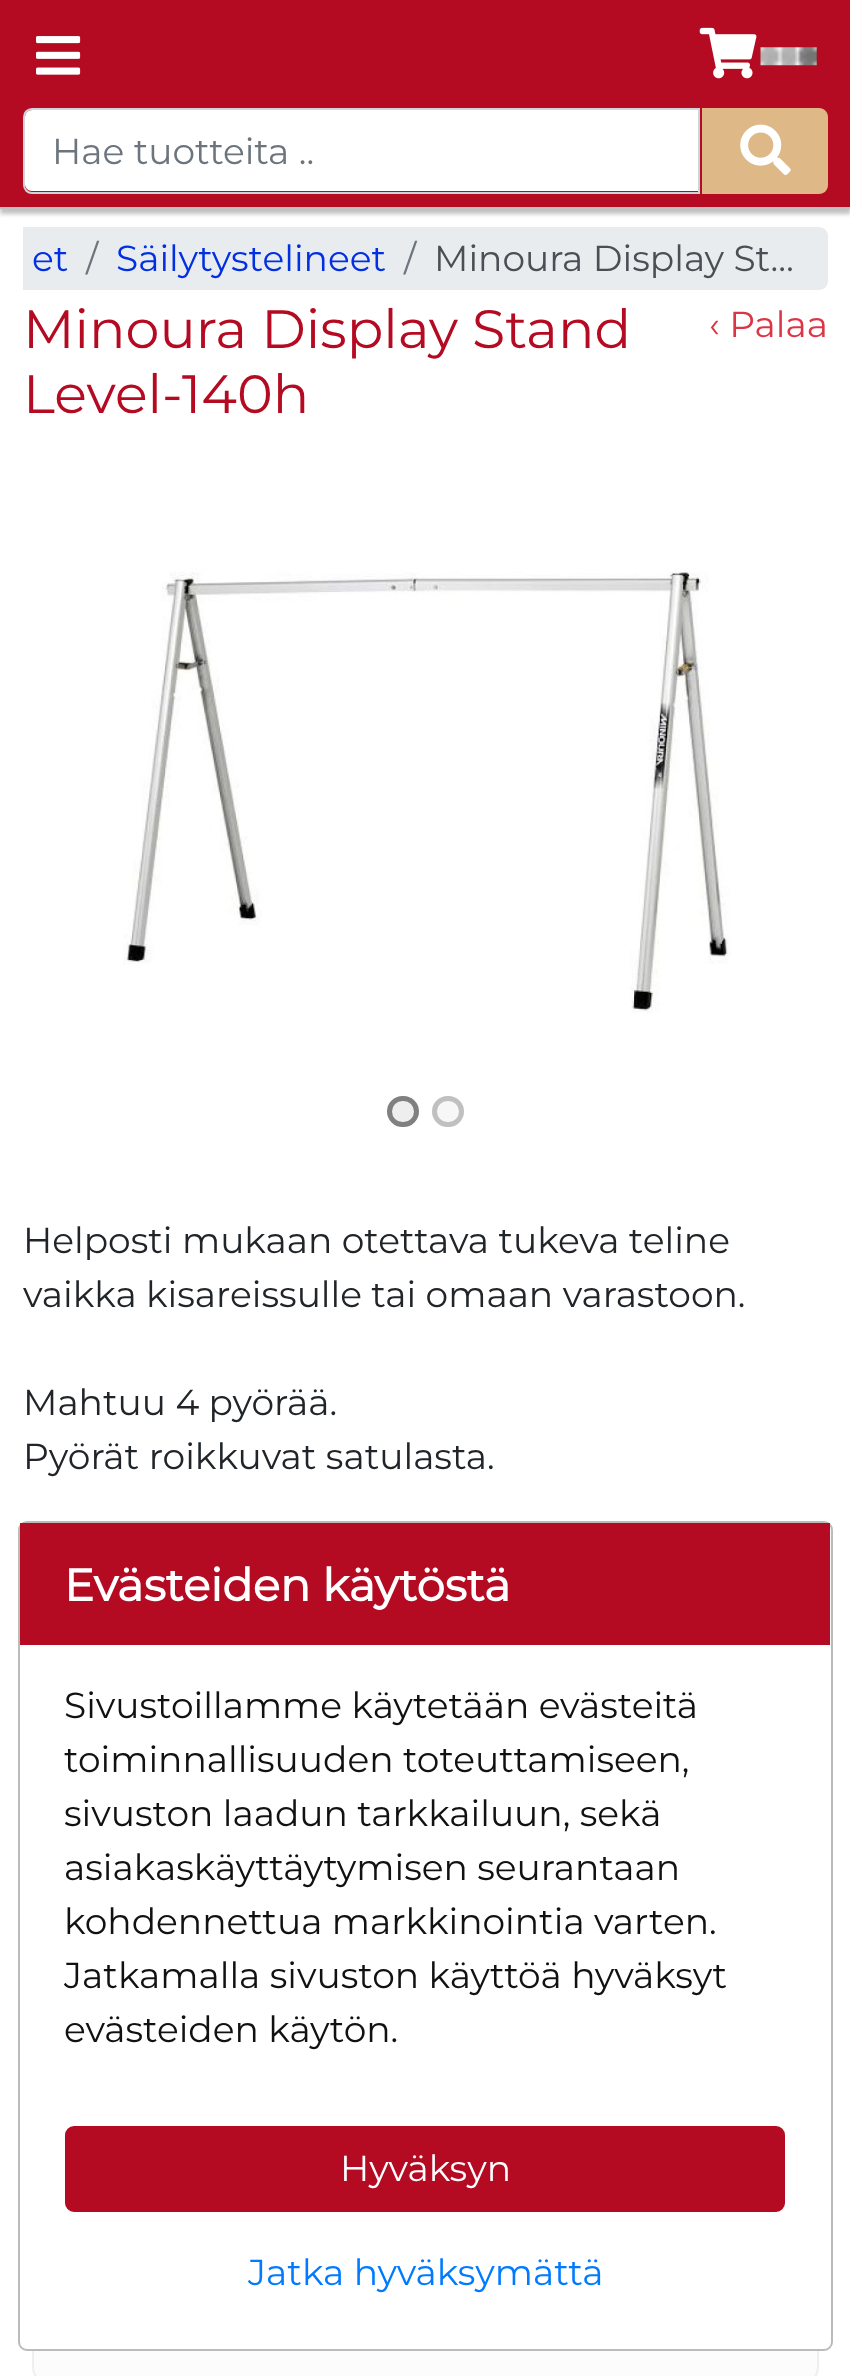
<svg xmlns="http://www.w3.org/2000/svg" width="850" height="2376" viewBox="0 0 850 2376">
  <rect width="100%" height="100%" fill="#fff"/>
  <path d="M0 5h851v209H0z" fill="#c0c0c0" filter="blur(2px)"/>
  <path d="M0 0h850v207H0z" fill="#b50b22"/>
  <path d="M0 207h850v2H0z" fill="#c0c0c0"/>
  <image x="36" y="36" width="45" height="39" href="img/1.png"/>
  <image x="699" y="27" width="58" height="52" href="img/2.png"/>
  <image x="760" y="47" width="57" height="19" href="img/3.png"/>
  <path d="M32 110H698V191H32C28 191 25 188 25 184V117C25 113 28 110 32 110Z" fill="#fff"/>
  <path d="M32 109H699V193H32C27.5 193 24 189.5 24 185V117C24 112.5 27.5 109 32 109Z" fill="none" stroke="#ced4da" stroke-width="2"/>
  <path d="M702 108H819C824 108 828 112 828 117V185C828 190 824 194 819 194H702Z" fill="#deb887"/>
  <image x="740" y="124" width="51" height="51" href="img/4.png"/>
  <path d="M23 227H819C824 227 828 231 828 236V281C828 286 824 290 819 290H23Z" fill="#e9ecef"/>
  <image x="123" y="568" width="608" height="446" href="img/5.png"/>
  <rect x="389.5" y="1098.5" width="27" height="26" rx="13" fill="#eee" stroke="#808080" stroke-width="5"/>
  <rect x="434.5" y="1098.5" width="27" height="26" rx="13" fill="#f7f7f7" stroke="#c0c0c0" stroke-width="5"/>
  <rect x="33" y="1900" width="785" height="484" rx="17" fill="#fcfcfc" stroke="#efefef" stroke-width="2"/>
  <rect x="19" y="1522" width="813" height="828" rx="8" fill="#fff" stroke="#bbb" stroke-width="2"/>
  <path d="M20 1523h810v122H20z" fill="#b50b22"/>
  <rect x="66" y="2127" width="718" height="84" rx="8" fill="#b50b22" stroke="#b50b22" stroke-width="2"/>
  <text x="52" y="164" font-family="Montserrat" font-size="36" font-weight="100" fill="#6c757d">Hae tuotteita ..</text>
  <text x="32" y="271" font-family="Montserrat" font-size="36" font-weight="100" fill="#0030e1">et</text>
  <text x="86" y="271" font-family="Montserrat" font-size="36" font-weight="100" fill="#6c757d">/</text>
  <text x="116" y="271" font-family="Montserrat" font-size="36" font-weight="100" fill="#0030e1">Säilytystelineet</text>
  <text x="404" y="271" font-family="Montserrat" font-size="36" font-weight="100" fill="#6c757d">/</text>
  <text x="434" y="271" font-family="Montserrat" font-size="36" font-weight="100" fill="#494f54">Minoura Display St…</text>
  <g font-family="Montserrat" font-size="54" font-weight="100" fill="#b50b22">
    <text x="23" y="348">Minoura Display Stand</text>
    <text x="23" y="413">Level-140h</text>
  </g>
  <text x="709" y="337" font-family="Montserrat" font-size="36" font-weight="100" fill="#dc3545">‹ Palaa</text>
  <g font-family="Montserrat" font-size="36" font-weight="100" fill="#212529">
    <text x="23" y="1253">Helposti mukaan otettava tukeva teline</text>
    <text x="23" y="1307">vaikka kisareissulle tai omaan varastoon.</text>
    <text x="23" y="1415">Mahtuu 4 pyörää.</text>
    <text x="23" y="1469">Pyörät roikkuvat satulasta.</text>
  </g>
  <text x="64" y="1601" font-family="Montserrat" font-size="45" font-weight="bold" fill="#fff">Evästeiden käytöstä</text>
  <g font-family="Montserrat" font-size="36" font-weight="100" fill="#111">
    <text x="64" y="1718">Sivustoillamme käytetään evästeitä</text>
    <text x="64" y="1772">toiminnallisuuden toteuttamiseen,</text>
    <text x="64" y="1826">sivuston laadun tarkkailuun, sekä</text>
    <text x="64" y="1880">asiakaskäyttäytymisen seurantaan</text>
    <text x="64" y="1934">kohdennettua markkinointia varten.</text>
    <text x="64" y="1988">Jatkamalla sivuston käyttöä hyväksyt</text>
    <text x="64" y="2042">evästeiden käytön.</text>
  </g>
  <text x="340" y="2181" font-family="Montserrat" font-size="36" font-weight="100" fill="#fff">Hyväksyn</text>
  <text x="248" y="2285" font-family="Montserrat" font-size="36" font-weight="100" fill="#007bff">Jatka hyväksymättä</text>
</svg>
